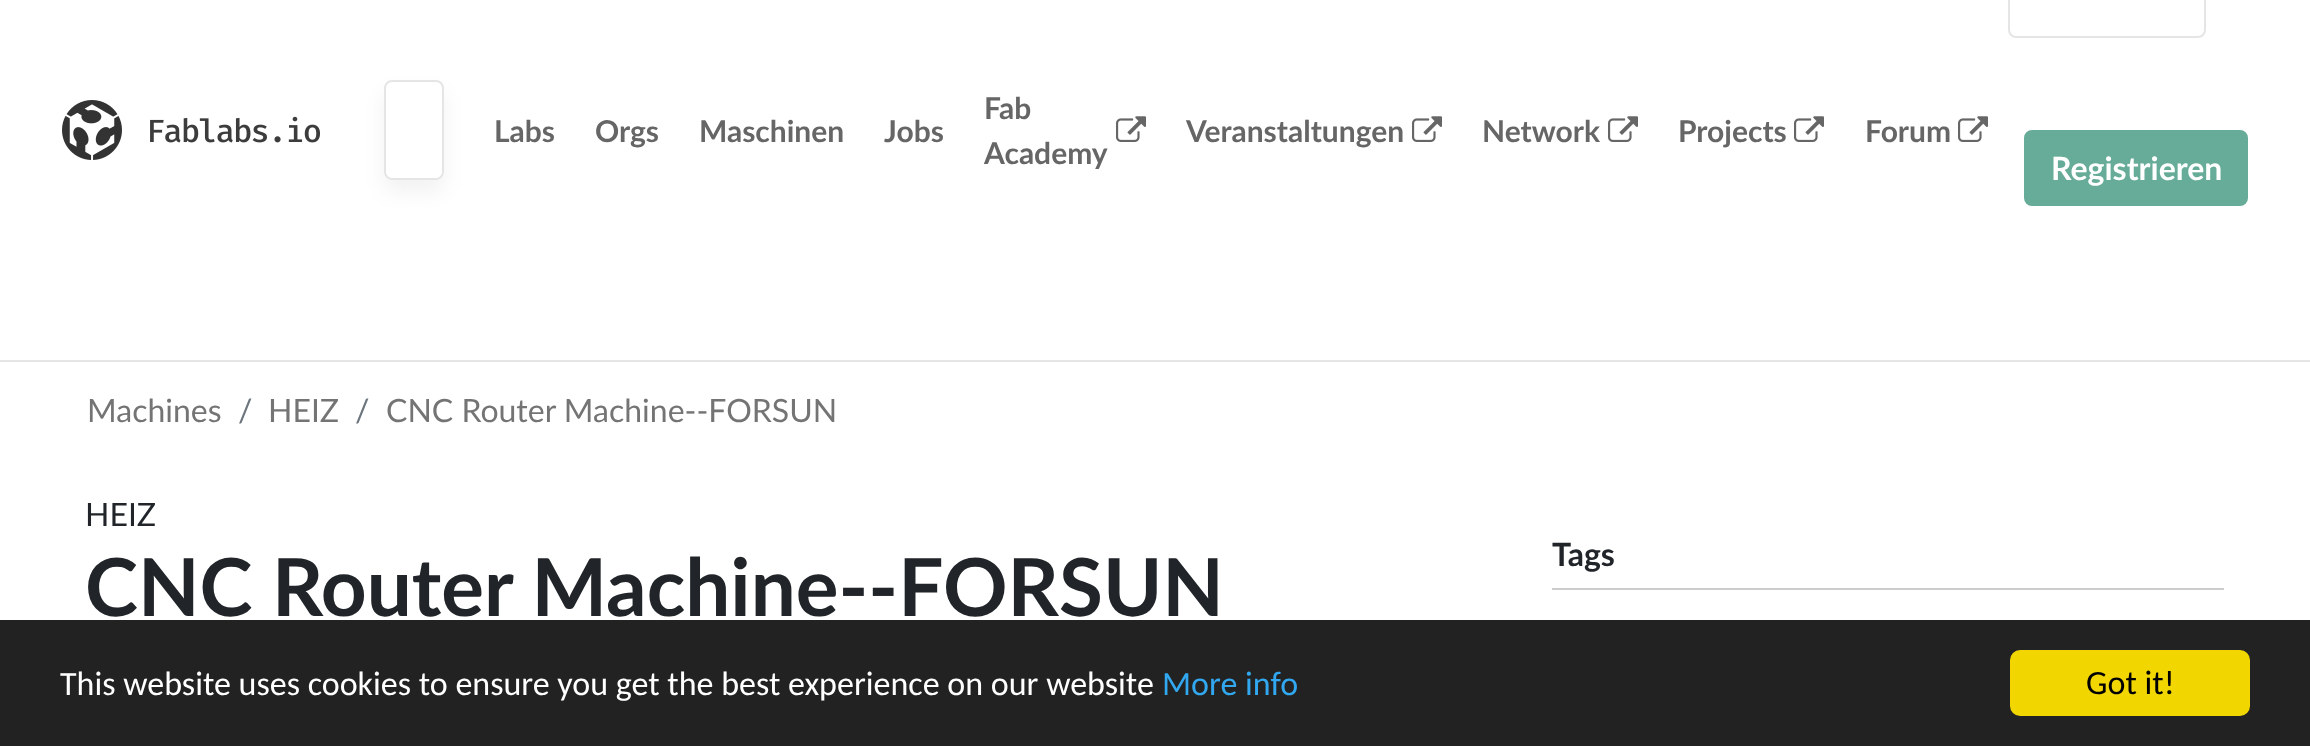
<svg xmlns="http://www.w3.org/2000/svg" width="2310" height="746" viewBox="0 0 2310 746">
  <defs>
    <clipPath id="clip1"><path d="M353 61H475V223H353ZM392 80H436C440.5 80 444 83.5 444 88V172C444 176.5 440.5 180 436 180H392C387.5 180 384 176.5 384 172V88C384 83.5 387.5 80 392 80Z" clip-rule="evenodd"/></clipPath>
  </defs>
  <rect width="100%" height="100%" fill="#fff"/>
  <path d="M0 360h2310v2H0z" fill="#e5e5e5"/>
  <image x="62" y="100" width="259" height="60" href="img/1.png"/>
  <g clip-path="url(#clip1)">
    <rect x="384" y="92" width="60" height="100" rx="8" fill="#0000000d" filter="blur(10px)"/>
  </g>
  <rect x="385" y="81" width="58" height="98" rx="7" fill="none" stroke="#e5e5e5" stroke-width="2"/>
  <image x="1116" y="116" width="30" height="26" href="img/2.png"/>
  <image x="1412" y="116" width="30" height="26" href="img/2.png"/>
  <image x="1608" y="116" width="30" height="26" href="img/2.png"/>
  <image x="1794" y="116" width="30" height="26" href="img/2.png"/>
  <image x="1958" y="116" width="30" height="26" href="img/2.png"/>
  <rect x="2009" y="-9" width="196" height="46" rx="7" fill="none" stroke="#e5e5e5" stroke-width="2"/>
  <rect x="2025" y="131" width="222" height="74" rx="7" fill="#67ac98" stroke="#67ac98" stroke-width="2"/>
  <path d="M1552 588h672v2H1552z" fill="#ccc"/>
  <path d="M0 620h2310v126H0z" fill="#222"/>
  <rect x="2010" y="650" width="240" height="66" rx="10" fill="#f1d600"/>
  <g font-family="Lato" font-size="30" font-weight="bold" fill="#666">
    <text x="494" y="142">Labs</text>
    <text x="595" y="142">Orgs</text>
    <text x="699" y="142">Maschinen</text>
    <text x="884" y="142">Jobs</text>
    <text x="984" y="119">Fab</text>
    <text x="984" y="164">Academy</text>
    <text x="1186" y="142">Veranstaltungen</text>
    <text x="1482" y="142">Network</text>
    <text x="1678" y="142">Projects</text>
    <text x="1865" y="142">Forum</text>
  </g>
  <text x="2051" y="180" font-family="Lato" font-size="32" font-weight="bold" fill="#fff">Registrieren</text>
  <text x="87" y="422" font-family="Lato" font-size="32" fill="#747474">Machines</text>
  <text x="238" y="422" font-family="Lato" font-size="32" fill="#6c757d">/</text>
  <text x="268" y="422" font-family="Lato" font-size="32" fill="#747474">HEIZ</text>
  <text x="355" y="422" font-family="Lato" font-size="32" fill="#6c757d">/</text>
  <text x="386" y="422" font-family="Lato" font-size="32" fill="#747474">CNC Router Machine--FORSUN</text>
  <text x="85" y="526" font-family="Lato" font-size="32" fill="#212529">HEIZ</text>
  <text x="85" y="616" font-family="Lato" font-size="80" font-weight="bold" fill="#212529">CNC Router Machine--FORSUN</text>
  <text x="1552" y="566" font-family="Lato" font-size="32" font-weight="bold" fill="#212529">Tags</text>
  <text x="60" y="695" font-family="Carlito" font-size="34" fill="#fff">This website uses cookies to ensure you get the best experience on our website</text>
  <text x="1162" y="695" font-family="Carlito" font-size="34" fill="#31a8f0">More info</text>
  <text x="2086" y="694" font-family="Carlito" font-size="34" fill="#000">Got it!</text>
</svg>
